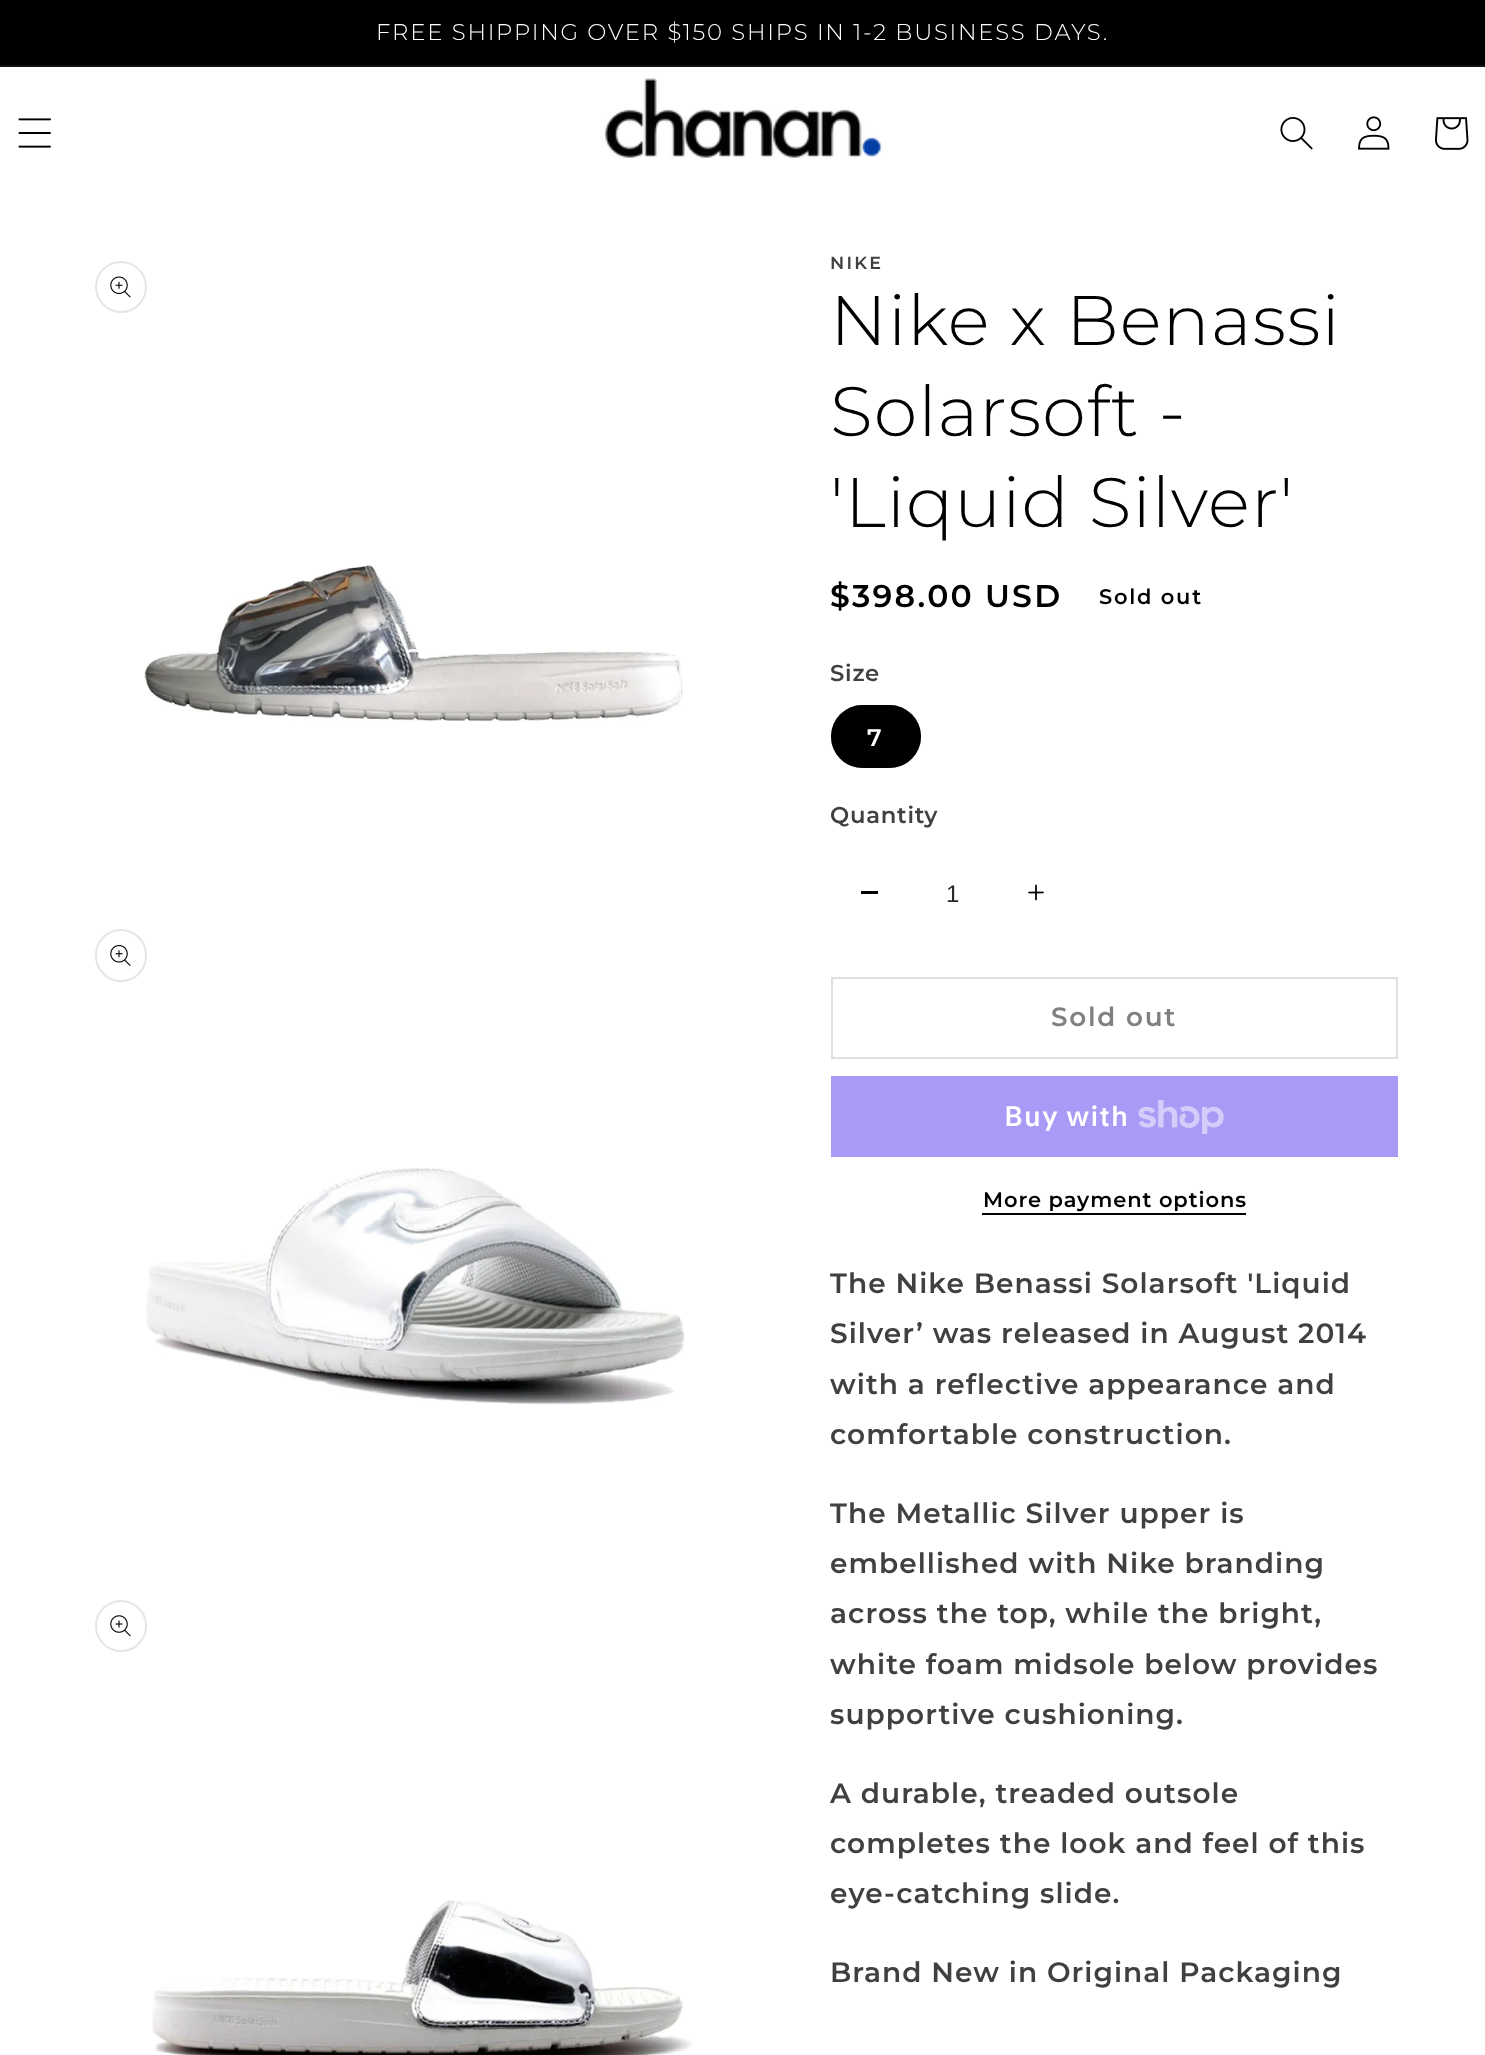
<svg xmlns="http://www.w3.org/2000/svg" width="1485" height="2055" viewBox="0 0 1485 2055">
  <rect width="100%" height="100%" fill="#fff"/>
  <path d="M0 0h1485v65H0z" fill="#000"/>
  <path d="M0 65h1485v2H0z" fill="#141414"/>
  <image x="18" y="118" width="33" height="30" href="img/1.png"/>
  <image x="605" y="78" width="278" height="80" href="img/2.png"/>
  <image x="1280" y="117" width="33" height="33" href="img/3.png"/>
  <image x="1358" y="116" width="32" height="34" href="img/4.png"/>
  <image x="1435" y="117" width="34" height="33" href="img/5.png"/>
  <circle cx="121" cy="287" r="25" fill="none" stroke="#e6e6e6" stroke-width="2"/>
  <image x="110" y="276" width="21" height="22" href="img/6.png"/>
  <image x="144" y="564" width="539" height="158" href="img/7.png"/>
  <rect x="96" y="930" width="50" height="51" rx="25" fill="none" stroke="#e6e6e6" stroke-width="2"/>
  <image x="110" y="945" width="21" height="21" href="img/8.png"/>
  <image x="146" y="1168" width="539" height="237" href="img/9.png"/>
  <circle cx="121" cy="1626" r="25" fill="none" stroke="#e6e6e6" stroke-width="2"/>
  <image x="110" y="1615" width="21" height="22" href="img/10.png"/>
  <image x="152" y="1900" width="540" height="155" href="img/11.png"/>
  <rect x="831" y="705" width="90" height="63" rx="31.5" fill="#000"/>
  <rect x="832" y="706" width="88" height="61" rx="30.5" fill="none" stroke="#0000008c" stroke-width="2"/>
  <path d="M861 891h17v3H861z" fill="#000"/>
  <image x="1028" y="884" width="16" height="17" href="img/12.png"/>
  <path d="M832 978h565v80H832z" fill="none" stroke="#dfdfdf" stroke-width="2"/>
  <path d="M831 1076h567v81H831z" fill="#aa99f5"/>
  <image x="1138" y="1099" width="86" height="35" href="img/13.png"/>
  <path d="M982 1213h264v2H982z" fill="#000"/>
  <text x="376" y="40" font-family="Montserrat" font-size="22.75" font-weight="300" letter-spacing="1.75" fill="#fff">FREE SHIPPING OVER $150 SHIPS IN 1-2 BUSINESS DAYS.</text>
  <text x="830" y="269" font-family="Montserrat" font-size="17.5" font-weight="600" letter-spacing="2.25" fill="#404040">NIKE</text>
  <g font-family="Montserrat" font-size="70" font-weight="300" letter-spacing="1.05" fill="#000">
    <text x="830" y="345">Nike x Benassi</text>
    <text x="830" y="436">Solarsoft -</text>
    <text x="830" y="527">'Liquid Silver'</text>
  </g>
  <text x="830" y="607" font-family="Montserrat" font-size="31.5" font-weight="600" letter-spacing="2.25" fill="#000">$398.00 USD</text>
  <text x="1099" y="604" font-family="Montserrat" font-size="21" font-weight="600" letter-spacing="1.75" fill="#000">Sold out</text>
  <text x="830" y="681" font-family="Montserrat" font-size="22.75" font-weight="600" letter-spacing="0.75" fill="#404040">Size</text>
  <text x="867" y="746" font-family="Montserrat" font-size="24" font-weight="600" letter-spacing="1.75" fill="#fff">7</text>
  <text x="830" y="823" font-family="Montserrat" font-size="22.75" font-weight="600" letter-spacing="0.75" fill="#404040">Quantity</text>
  <text x="946" y="902" font-family="Liberation Sans" font-size="24" fill="#262626">1</text>
  <text x="1051" y="1026" font-family="Montserrat" font-size="26.25" font-weight="600" letter-spacing="1.75" fill="#808080">Sold out</text>
  <text x="1004" y="1126" font-family="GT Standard" font-size="28" font-weight="600" letter-spacing="1.05" fill="#fff">Buy with</text>
  <text x="983" y="1207" font-family="Montserrat" font-size="21" font-weight="600" letter-spacing="0.9" fill="#000">More payment options</text>
  <g font-family="Montserrat" font-size="28" font-weight="600" letter-spacing="1.05" fill="#404040">
    <text x="830" y="1293">The Nike Benassi Solarsoft 'Liquid</text>
    <text x="830" y="1343">Silver’ was released in August 2014</text>
    <text x="830" y="1394">with a reflective appearance and</text>
    <text x="830" y="1444">comfortable construction.</text>
    <text x="830" y="1523">The Metallic Silver upper is</text>
    <text x="830" y="1573">embellished with Nike branding</text>
    <text x="830" y="1623">across the top, while the bright,</text>
    <text x="830" y="1674">white foam midsole below provides</text>
    <text x="830" y="1724">supportive cushioning.</text>
    <text x="830" y="1803">A durable, treaded outsole</text>
    <text x="830" y="1853">completes the look and feel of this</text>
    <text x="830" y="1903">eye-catching slide.</text>
    <text x="830" y="1982">Brand New in Original Packaging</text>
  </g>
</svg>
